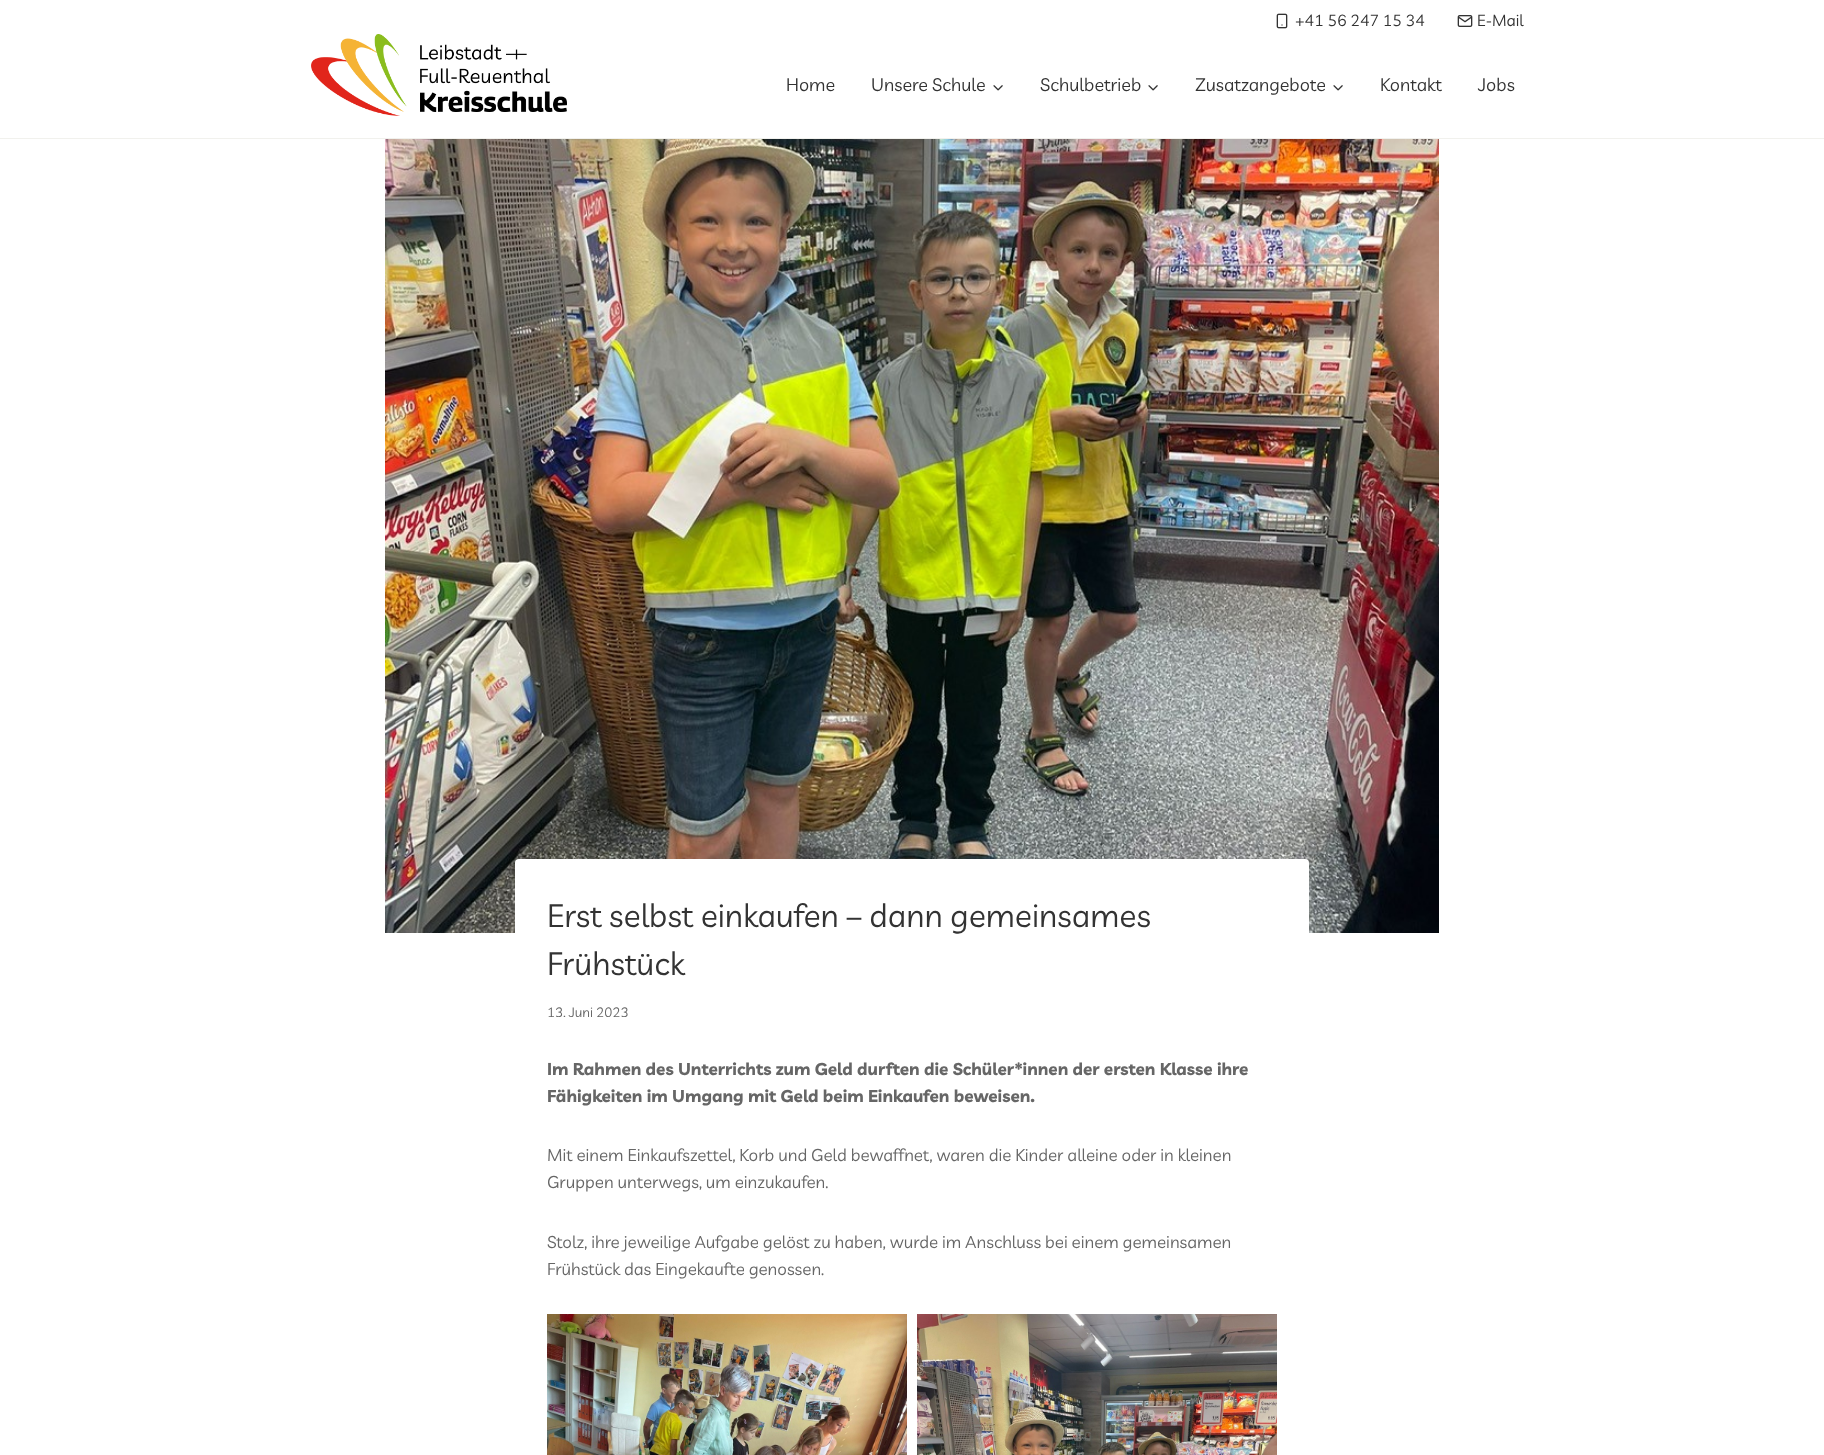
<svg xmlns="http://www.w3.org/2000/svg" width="1824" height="1455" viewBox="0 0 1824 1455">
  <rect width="100%" height="100%" fill="#fff"/>
  <image x="1276" y="13" width="12" height="16" href="img/1.png"/>
  <image x="1457" y="15" width="16" height="12" href="img/2.png"/>
  <path d="M0 138h1824v1H0z" fill="#f1f1ed"/>
  <image x="311" y="34" width="256" height="82" href="img/3.png"/>
  <image x="993" y="85" width="10" height="6" href="img/4.png"/>
  <image x="1148" y="85" width="10" height="6" href="img/4.png"/>
  <image x="1333" y="85" width="10" height="6" href="img/4.png"/>
  <image x="385" y="139" width="1054" height="794" href="img/5.png"/>
  <path d="M525 884h774v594H525z" fill="#fff" filter="blur(7.5px)"/>
  <rect x="515" y="859" width="794" height="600" rx="4" fill="#fff"/>
  <image x="547" y="1314" width="360" height="141" href="img/6.png"/>
  <image x="917" y="1314" width="360" height="141" href="img/7.png"/>
  <g font-family="Livvic" font-size="16" fill="#333">
    <text x="1295" y="26">+41 56 247 15 34</text>
    <text x="1477" y="26">E-Mail</text>
  </g>
  <g font-family="Livvic" font-size="18" fill="#333">
    <text x="786" y="91">Home</text>
    <text x="871" y="91">Unsere Schule</text>
    <text x="1040" y="91">Schulbetrieb</text>
    <text x="1195" y="91">Zusatzangebote</text>
    <text x="1380" y="91">Kontakt</text>
    <text x="1478" y="91">Jobs</text>
  </g>
  <g font-family="Livvic" font-size="32" fill="#333">
    <text x="547" y="927">Erst selbst einkaufen – dann gemeinsames</text>
    <text x="547" y="975">Frühstück</text>
  </g>
  <text x="547" y="1017" font-family="Livvic" font-size="13.5" fill="#666">13. Juni 2023</text>
  <g font-family="Livvic" font-size="17" font-weight="bold" fill="#666">
    <text x="547" y="1075">Im Rahmen des Unterrichts zum Geld durften die Schüler*innen der ersten Klasse ihre</text>
    <text x="547" y="1102">Fähigkeiten im Umgang mit Geld beim Einkaufen beweisen.</text>
  </g>
  <g font-family="Livvic" font-size="17" fill="#666">
    <text x="547" y="1161">Mit einem Einkaufszettel, Korb und Geld bewaffnet, waren die Kinder alleine oder in kleinen</text>
    <text x="547" y="1188">Gruppen unterwegs, um einzukaufen.</text>
    <text x="547" y="1248">Stolz, ihre jeweilige Aufgabe gelöst zu haben, wurde im Anschluss bei einem gemeinsamen</text>
    <text x="547" y="1275">Frühstück das Eingekaufte genossen.</text>
  </g>
</svg>
